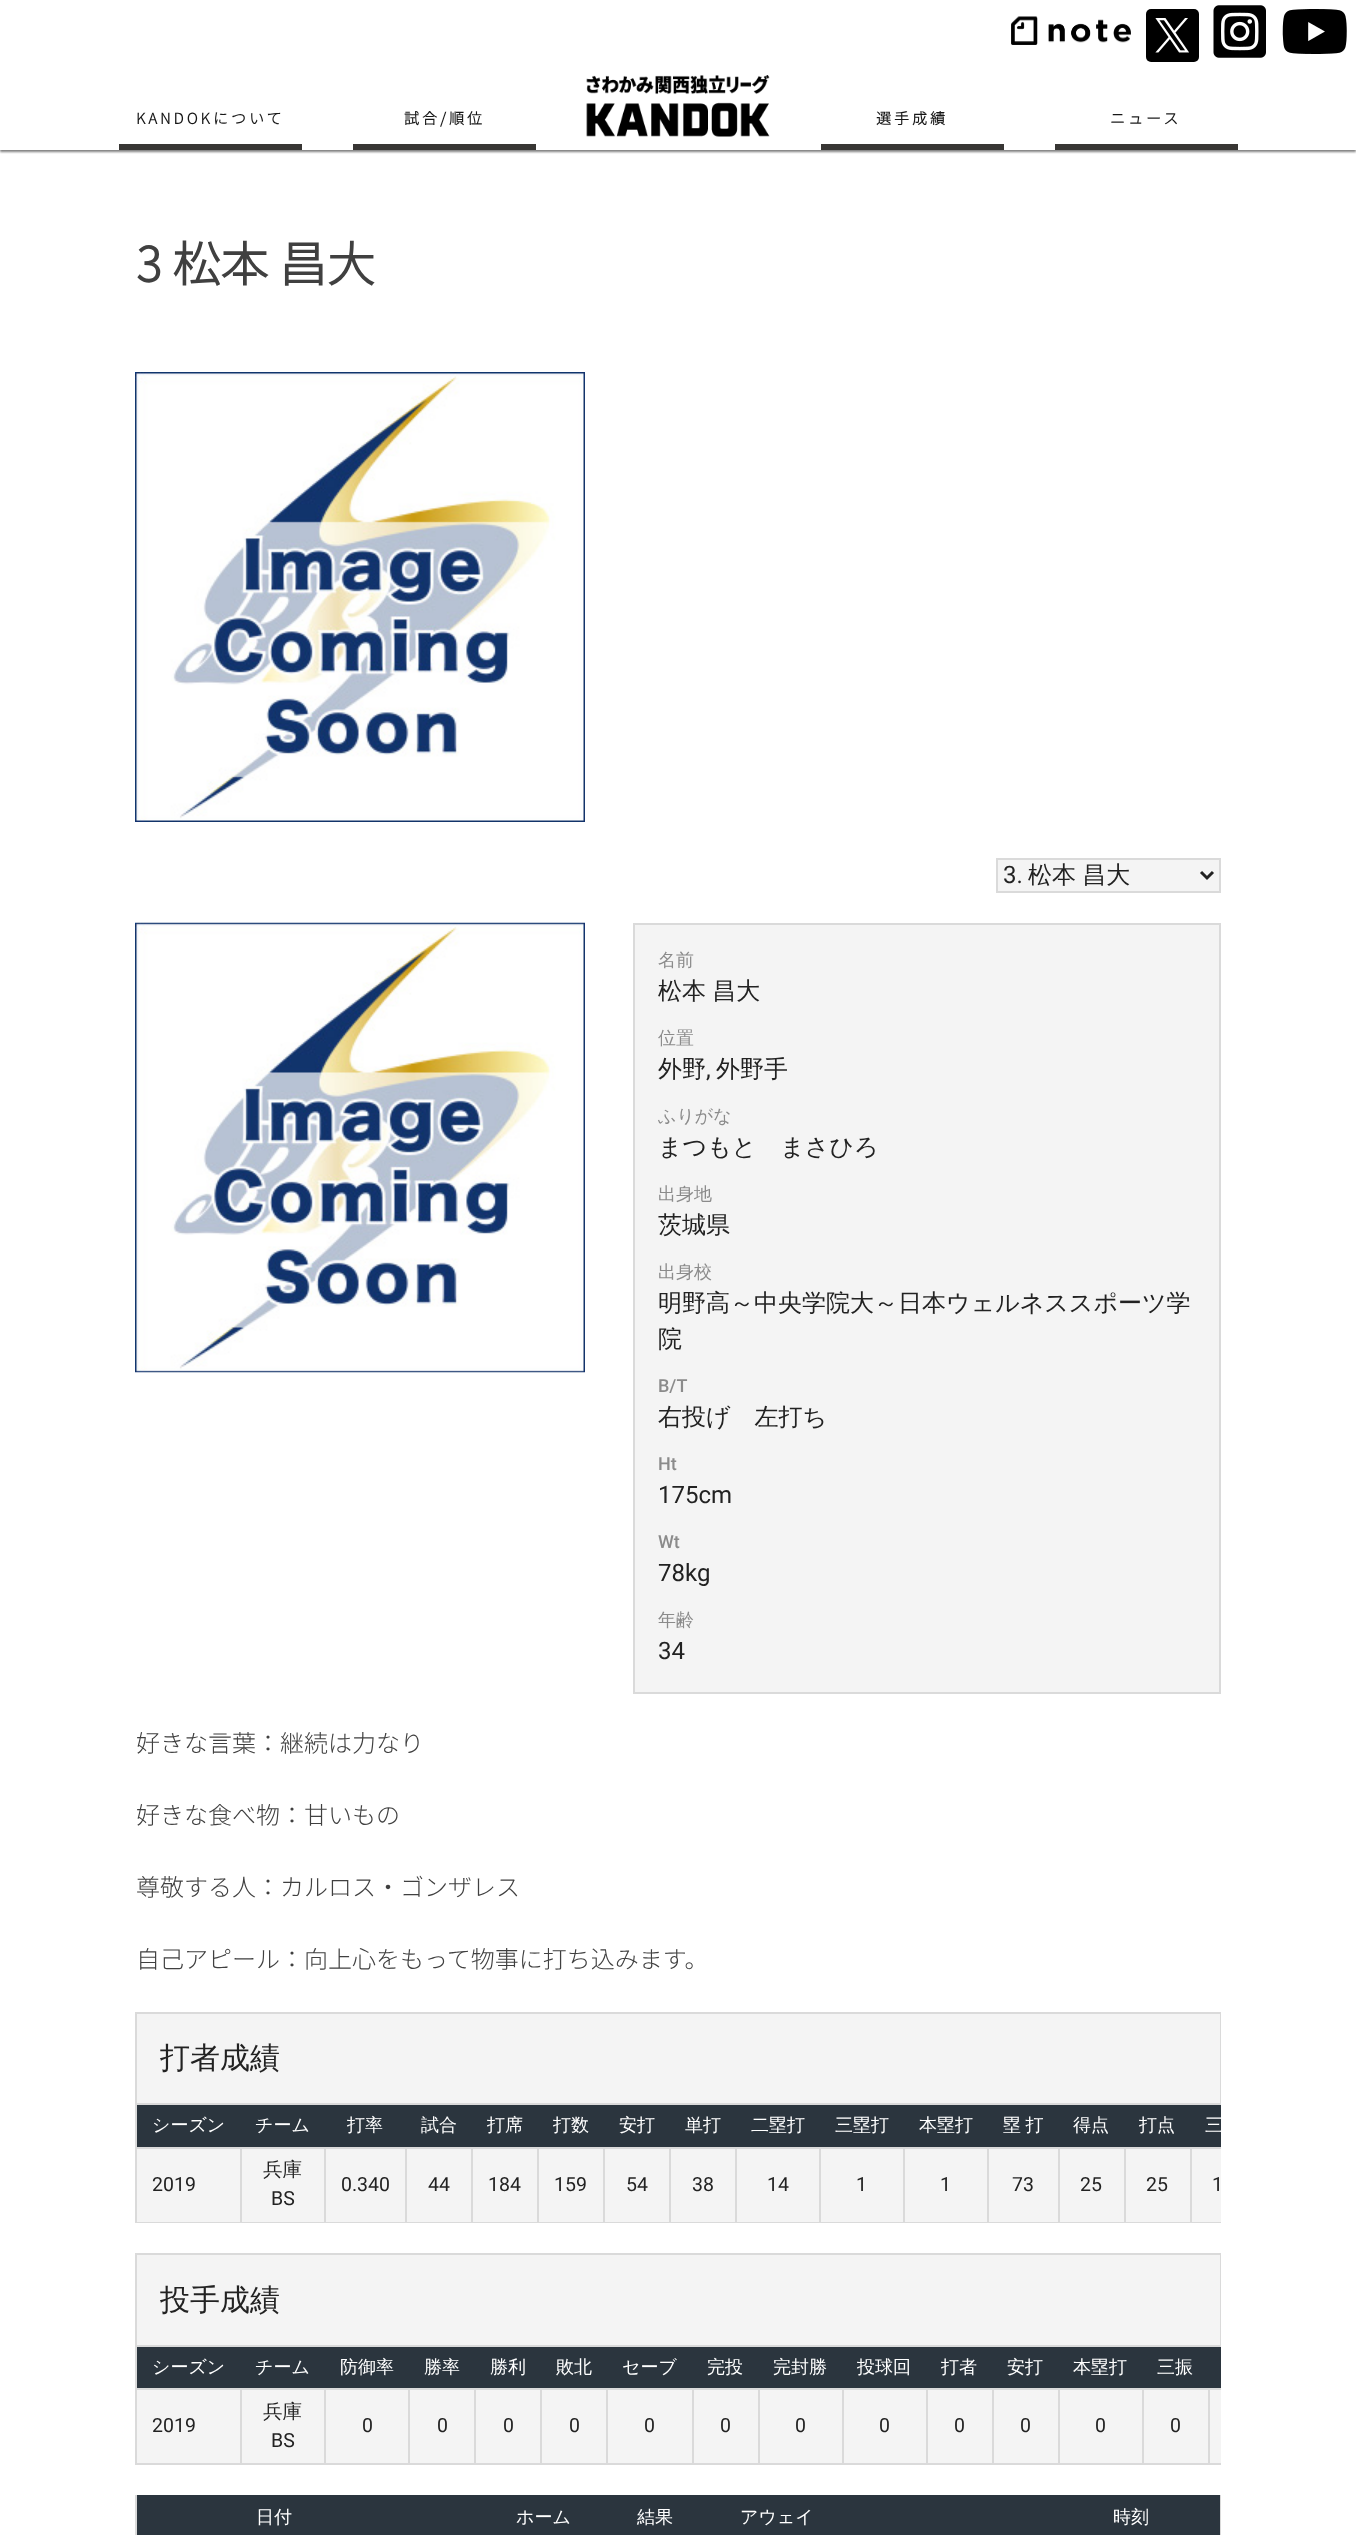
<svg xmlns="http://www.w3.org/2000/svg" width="1356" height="2535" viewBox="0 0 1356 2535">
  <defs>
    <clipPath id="clip1"><path d="M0 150h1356v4H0z"/></clipPath>
    <clipPath id="clip2"><path d="M135 2103h1086v120H135z"/></clipPath>
  </defs>
  <rect width="100%" height="100%" fill="#fff"/>
  <image x="1011" y="16" width="120" height="29" href="img/1.png"/>
  <rect x="1146" y="9" width="53" height="53" rx="5" fill="#000"/>
  <image x="1155" y="18" width="34" height="35" href="img/2.png"/>
  <image x="1213" y="5" width="53" height="53" href="img/3.png"/>
  <image x="1282" y="9" width="65" height="45" href="img/4.png"/>
  <g clip-path="url(#clip1)">
    <path d="M0 63h1356v89H0z" fill="#00000080" filter="blur(1px)"/>
  </g>
  <path d="M119 144h183v6H119z" fill="#383634"/>
  <path d="M353 144h183v6H353z" fill="#383634"/>
  <image x="586" y="75" width="184" height="62" href="img/5.png"/>
  <path d="M821 144h183v6H821z" fill="#383634"/>
  <path d="M1055 144h183v6H1055z" fill="#383634"/>
  <image x="135" y="372" width="450" height="450" href="img/6.png"/>
  <path d="M997 859h223v33H997z" fill="#f4f4f4" stroke="#dadada" stroke-width="2"/>
  <path d="M1201 872L1207 878L1213 872" fill="none" stroke="#222" stroke-width="3"/>
  <image x="135" y="922" width="450" height="451" href="img/7.png"/>
  <path d="M634 924h586v769H634z" fill="#f4f4f4" stroke="#dadada" stroke-width="2"/>
  <path d="M137 2014h1083v89H137z" fill="#f4f4f4"/>
  <path d="M135 2012h1086v2H135z" fill="#dadada"/>
  <path d="M1220 2012h1v91H1220z" fill="#dadada"/>
  <path d="M135 2012h2v91H135z" fill="#dadada"/>
  <path d="M137 2149h1084v73H137z" fill="#f4f4f4"/>
  <path d="M135 2103h1086v2H135z" fill="#dadada"/>
  <path d="M135 2222h1086v1H135z" fill="#dadada"/>
  <path d="M135 2103h2v120H135z" fill="#dadada"/>
  <path d="M137 2105h1084v42H137z" fill="#2b353e"/>
  <path d="M1190 2147h31v2H1190z" fill="#dadada"/>
  <path d="M1190 2147h2v76H1190z" fill="#dadada"/>
  <path d="M1124 2147h67v2H1124z" fill="#dadada"/>
  <path d="M1124 2147h2v76H1124z" fill="#dadada"/>
  <path d="M1058 2147h67v2H1058z" fill="#dadada"/>
  <path d="M1058 2147h2v76H1058z" fill="#dadada"/>
  <path d="M987 2147h72v2H987z" fill="#dadada"/>
  <path d="M987 2147h2v76H987z" fill="#dadada"/>
  <path d="M903 2147h86v2H903z" fill="#dadada"/>
  <path d="M903 2147h2v76H903z" fill="#dadada"/>
  <path d="M819 2147h86v2H819z" fill="#dadada"/>
  <path d="M819 2147h2v76H819z" fill="#dadada"/>
  <path d="M735 2147h86v2H735z" fill="#dadada"/>
  <path d="M735 2147h2v76H735z" fill="#dadada"/>
  <path d="M669 2147h68v2H669z" fill="#dadada"/>
  <path d="M669 2147h2v76H669z" fill="#dadada"/>
  <path d="M603 2147h68v2H603z" fill="#dadada"/>
  <path d="M603 2147h2v76H603z" fill="#dadada"/>
  <path d="M537 2147h68v2H537z" fill="#dadada"/>
  <path d="M537 2147h2v76H537z" fill="#dadada"/>
  <path d="M471 2147h68v2H471z" fill="#dadada"/>
  <path d="M471 2147h2v76H471z" fill="#dadada"/>
  <path d="M405 2147h68v2H405z" fill="#dadada"/>
  <path d="M405 2147h2v76H405z" fill="#dadada"/>
  <path d="M324 2147h83v2H324z" fill="#dadada"/>
  <path d="M324 2147h2v76H324z" fill="#dadada"/>
  <path d="M240 2147h86v2H240z" fill="#dadada"/>
  <path d="M240 2147h2v76H240z" fill="#dadada"/>
  <path d="M135 2147h107v2H135z" fill="#dadada"/>
  <path d="M137 2255h1083v90H137z" fill="#f4f4f4"/>
  <path d="M135 2253h1086v2H135z" fill="#dadada"/>
  <path d="M1220 2253h1v92H1220z" fill="#dadada"/>
  <path d="M135 2253h2v92H135z" fill="#dadada"/>
  <path d="M137 2390h1084v73H137z" fill="#f4f4f4"/>
  <path d="M135 2345h1086v2H135z" fill="#dadada"/>
  <path d="M135 2463h1086v2H135z" fill="#dadada"/>
  <path d="M135 2345h2v120H135z" fill="#dadada"/>
  <path d="M137 2347h1084v41H137z" fill="#2b353e"/>
  <path d="M1208 2388h13v2H1208z" fill="#dadada"/>
  <path d="M1208 2388h2v77H1208z" fill="#dadada"/>
  <path d="M1142 2388h67v2H1142z" fill="#dadada"/>
  <path d="M1142 2388h2v77H1142z" fill="#dadada"/>
  <path d="M1058 2388h85v2H1058z" fill="#dadada"/>
  <path d="M1058 2388h2v77H1058z" fill="#dadada"/>
  <path d="M992 2388h67v2H992z" fill="#dadada"/>
  <path d="M992 2388h2v77H992z" fill="#dadada"/>
  <path d="M926 2388h67v2H926z" fill="#dadada"/>
  <path d="M926 2388h2v77H926z" fill="#dadada"/>
  <path d="M842 2388h85v2H842z" fill="#dadada"/>
  <path d="M842 2388h2v77H842z" fill="#dadada"/>
  <path d="M758 2388h85v2H758z" fill="#dadada"/>
  <path d="M758 2388h2v77H758z" fill="#dadada"/>
  <path d="M692 2388h67v2H692z" fill="#dadada"/>
  <path d="M692 2388h2v77H692z" fill="#dadada"/>
  <path d="M606 2388h87v2H606z" fill="#dadada"/>
  <path d="M606 2388h2v77H606z" fill="#dadada"/>
  <path d="M540 2388h68v2H540z" fill="#dadada"/>
  <path d="M540 2388h2v77H540z" fill="#dadada"/>
  <path d="M474 2388h68v2H474z" fill="#dadada"/>
  <path d="M474 2388h2v77H474z" fill="#dadada"/>
  <path d="M408 2388h68v2H408z" fill="#dadada"/>
  <path d="M408 2388h2v77H408z" fill="#dadada"/>
  <path d="M324 2388h86v2H324z" fill="#dadada"/>
  <path d="M324 2388h2v77H324z" fill="#dadada"/>
  <path d="M240 2388h86v2H240z" fill="#dadada"/>
  <path d="M240 2388h2v77H240z" fill="#dadada"/>
  <path d="M135 2388h107v2H135z" fill="#dadada"/>
  <path d="M1220 2495h1v40H1220z" fill="#dadada"/>
  <path d="M135 2495h2v40H135z" fill="#dadada"/>
  <path d="M137 2495h1083v40H137z" fill="#2b353e"/>
  <g font-family="Noto Sans JP" font-size="15" font-weight="bold" letter-spacing="3" fill="#171717">
    <text x="136" y="124">KANDOKについて</text>
    <text x="404" y="124">試合/順位</text>
    <text x="876" y="124">選手成績</text>
    <text x="1110" y="124">ニュース</text>
  </g>
  <text x="136" y="282" font-family="Noto Sans JP" font-size="48" font-weight="bold" fill="#404040">3 松本 昌大</text>
  <text x="1003" y="883" font-family="Roboto" font-size="24" fill="#222">3.</text>
  <text x="1028" y="883" word-spacing="-1" font-family="WenQuanYi Zen Hei" font-size="24" font-weight="500" fill="#222">松本 昌大</text>
  <text x="658" y="966" font-family="WenQuanYi Zen Hei" font-size="18" font-weight="500" fill="#8b8b8b">名前</text>
  <text x="658" y="999" word-spacing="-1" font-family="WenQuanYi Zen Hei" font-size="24" font-weight="500" fill="#222">松本 昌大</text>
  <text x="658" y="1044" font-family="WenQuanYi Zen Hei" font-size="18" font-weight="500" fill="#8b8b8b">位置</text>
  <text x="658" y="1077" font-family="WenQuanYi Zen Hei" font-size="24" font-weight="500" fill="#222">外野</text>
  <text x="706" y="1077" font-family="Roboto" font-size="24" fill="#222">,</text>
  <text x="716" y="1077" font-family="WenQuanYi Zen Hei" font-size="24" font-weight="500" fill="#222">外野手</text>
  <text x="658" y="1122" font-family="WenQuanYi Zen Hei" font-size="18" font-weight="500" fill="#8b8b8b">ふりがな</text>
  <text x="658" y="1155" font-family="WenQuanYi Zen Hei" font-size="24" font-weight="500" fill="#222">まつもと　まさひろ</text>
  <text x="658" y="1200" font-family="WenQuanYi Zen Hei" font-size="18" font-weight="500" fill="#8b8b8b">出身地</text>
  <text x="658" y="1233" font-family="WenQuanYi Zen Hei" font-size="24" font-weight="500" fill="#222">茨城県</text>
  <text x="658" y="1278" font-family="WenQuanYi Zen Hei" font-size="18" font-weight="500" fill="#8b8b8b">出身校</text>
  <g font-family="WenQuanYi Zen Hei" font-size="24" font-weight="500" fill="#222">
    <text x="658" y="1311">明野高～中央学院大～日本ウェルネススポーツ学</text>
    <text x="658" y="1347">院</text>
  </g>
  <text x="658" y="1392" font-family="Roboto" font-size="18" font-weight="500" fill="#8b8b8b">B/T</text>
  <text x="658" y="1425" font-family="WenQuanYi Zen Hei" font-size="24" font-weight="500" fill="#222">右投げ　左打ち</text>
  <text x="658" y="1470" font-family="Roboto" font-size="18" font-weight="500" fill="#8b8b8b">Ht</text>
  <text x="658" y="1503" font-family="Roboto" font-size="24" fill="#222">175cm</text>
  <text x="658" y="1548" font-family="Roboto" font-size="18" font-weight="500" fill="#8b8b8b">Wt</text>
  <text x="658" y="1581" font-family="Roboto" font-size="24" fill="#222">78kg</text>
  <text x="658" y="1626" font-family="WenQuanYi Zen Hei" font-size="18" font-weight="500" fill="#8b8b8b">年齢</text>
  <text x="658" y="1659" font-family="Roboto" font-size="24" fill="#222">34</text>
  <g font-family="Noto Sans JP" font-size="24" font-weight="100" fill="#404040">
    <text x="136" y="1752">好きな言葉：継続は力なり</text>
    <text x="136" y="1824">好きな食べ物：甘いもの</text>
    <text x="136" y="1896">尊敬する人：カルロス・ゴンザレス</text>
    <text x="136" y="1968">自己アピール：向上心をもって物事に打ち込みます。</text>
  </g>
  <text x="160" y="2068" font-family="WenQuanYi Zen Hei" font-size="30" font-weight="500" fill="#222">打者成績</text>
  <g font-family="WenQuanYi Zen Hei" font-size="18" font-weight="500" fill="#fff">
    <text x="152" y="2131">シーズン</text>
    <text x="255" y="2131">チーム</text>
    <text x="347" y="2131">打率</text>
    <text x="421" y="2131">試合</text>
    <text x="487" y="2131">打席</text>
    <text x="553" y="2131">打数</text>
    <text x="619" y="2131">安打</text>
    <text x="685" y="2131">単打</text>
    <text x="751" y="2131">二塁打</text>
    <text x="835" y="2131">三塁打</text>
    <text x="919" y="2131">本塁打</text>
    <text x="1003" y="2131" word-spacing="-1">塁 打</text>
    <text x="1073" y="2131">得点</text>
    <text x="1139" y="2131">打点</text>
  </g>
  <g clip-path="url(#clip2)">
    <text x="1205" y="2131" font-family="WenQuanYi Zen Hei" font-size="18" font-weight="500" fill="#fff">三</text>
  </g>
  <text x="152" y="2191" font-family="Roboto" font-size="19.5" fill="#222">2019</text>
  <text x="263" y="2176" font-family="WenQuanYi Zen Hei" font-size="19.5" font-weight="500" fill="#222">兵庫</text>
  <g font-family="Roboto" font-size="19.5" fill="#222">
    <text x="271" y="2205">BS</text>
    <text x="341" y="2191">0.340</text>
    <text x="428" y="2191">44</text>
    <text x="488" y="2191">184</text>
    <text x="554" y="2191">159</text>
    <text x="626" y="2191">54</text>
    <text x="692" y="2191">38</text>
    <text x="767" y="2191">14</text>
    <text x="856" y="2191">1</text>
    <text x="940" y="2191">1</text>
    <text x="1012" y="2191">73</text>
    <text x="1080" y="2191">25</text>
    <text x="1146" y="2191">25</text>
    <text x="1212" y="2191">1</text>
  </g>
  <text x="160" y="2310" font-family="WenQuanYi Zen Hei" font-size="30" font-weight="500" fill="#222">投手成績</text>
  <g font-family="WenQuanYi Zen Hei" font-size="18" font-weight="500" fill="#fff">
    <text x="152" y="2373">シーズン</text>
    <text x="255" y="2373">チーム</text>
    <text x="340" y="2373">防御率</text>
    <text x="424" y="2373">勝率</text>
    <text x="490" y="2373">勝利</text>
    <text x="556" y="2373">敗北</text>
    <text x="622" y="2373">セーブ</text>
    <text x="707" y="2373">完投</text>
    <text x="773" y="2373">完封勝</text>
    <text x="857" y="2373">投球回</text>
    <text x="941" y="2373">打者</text>
    <text x="1007" y="2373">安打</text>
    <text x="1073" y="2373">本塁打</text>
    <text x="1157" y="2373">三振</text>
  </g>
  <text x="152" y="2432" font-family="Roboto" font-size="19.5" fill="#222">2019</text>
  <text x="263" y="2418" font-family="WenQuanYi Zen Hei" font-size="19.5" font-weight="500" fill="#222">兵庫</text>
  <g font-family="Roboto" font-size="19.5" fill="#222">
    <text x="271" y="2447">BS</text>
    <text x="362" y="2432">0</text>
    <text x="437" y="2432">0</text>
    <text x="503" y="2432">0</text>
    <text x="569" y="2432">0</text>
    <text x="644" y="2432">0</text>
    <text x="720" y="2432">0</text>
    <text x="795" y="2432">0</text>
    <text x="879" y="2432">0</text>
    <text x="954" y="2432">0</text>
    <text x="1020" y="2432">0</text>
    <text x="1095" y="2432">0</text>
    <text x="1170" y="2432">0</text>
  </g>
  <g font-family="WenQuanYi Zen Hei" font-size="18" font-weight="500" fill="#fff">
    <text x="256" y="2523">日付</text>
    <text x="516" y="2523">ホーム</text>
    <text x="637" y="2523">結果</text>
    <text x="740" y="2523">アウェイ</text>
    <text x="1113" y="2523">時刻</text>
  </g>
</svg>
